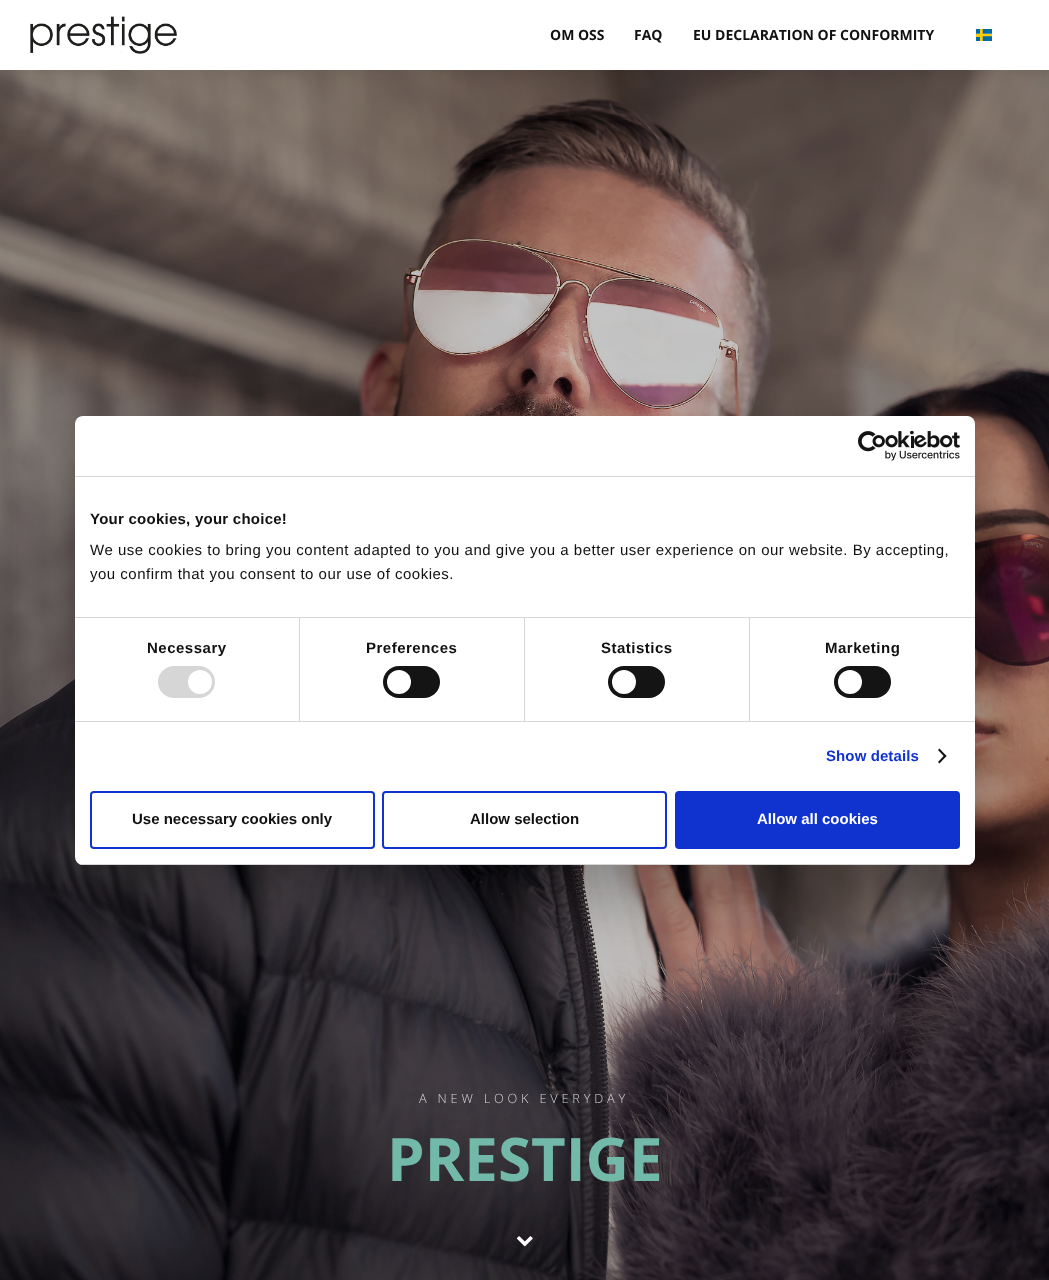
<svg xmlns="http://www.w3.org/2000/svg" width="1049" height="1280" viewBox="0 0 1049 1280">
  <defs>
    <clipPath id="clip1"><rect x="75" y="416" width="900" height="449" rx="8"/></clipPath>
  </defs>
  <rect width="100%" height="100%" fill="#fff"/>
  <image x="0" y="70" width="1049" height="1210" href="img/4.png"/>
  <path d="M0 0h1049v70H0z" fill="#0000001a" filter="blur(7.5px)"/>
  <path d="M0 0h1049v70H0z" fill="#fff"/>
  <image x="30" y="16" width="147" height="38" href="img/1.png"/>
  <image x="976" y="29" width="16" height="12" href="img/2.png"/>
  <rect x="75" y="448" width="900" height="449" rx="8" fill="#0000004d" filter="blur(34px)"/>
  <rect x="75" y="416" width="900" height="449" rx="8" fill="#fff"/>
  <path d="M75 476h900v1H75z" fill="#d6d6d6"/>
  <image x="858" y="431" width="102" height="30" href="img/3.png"/>
  <path d="M75 617h900v1H75z" fill="#d6d6d6"/>
  <path d="M75 721h900v1H75z" fill="#d6d6d6"/>
  <path d="M299 618h1v103H299z" fill="#d6d6d6"/>
  <rect x="158" y="666" width="57" height="32" rx="16" fill="#d6d6d6"/>
  <circle cx="200" cy="682" r="12" fill="#fff"/>
  <path d="M524 618h1v103H524z" fill="#d6d6d6"/>
  <rect x="383" y="666" width="57" height="32" rx="16" fill="#141414"/>
  <circle cx="399" cy="682" r="12" fill="#fff"/>
  <path d="M749 618h1v103H749z" fill="#d6d6d6"/>
  <rect x="608" y="666" width="57" height="32" rx="16" fill="#141414"/>
  <circle cx="624" cy="682" r="12" fill="#fff"/>
  <rect x="834" y="666" width="57" height="32" rx="16" fill="#141414"/>
  <circle cx="850" cy="682" r="12" fill="#fff"/>
  <path d="M939.5 748.5L946.5 756L945 757.5L938 750Z" fill="#141414"/>
  <path d="M945 754.5L946.5 756L939.5 763.5L938 762Z" fill="#141414"/>
  <g clip-path="url(#clip1)">
    <path d="M75 864h900v1H75z" fill="#d6d6d6"/>
  </g>
  <rect x="91" y="792" width="283" height="56" rx="3" fill="none" stroke="#1032cf" stroke-width="2"/>
  <rect x="383" y="792" width="283" height="56" rx="3" fill="none" stroke="#1032cf" stroke-width="2"/>
  <rect x="676" y="792" width="283" height="56" rx="3" fill="#1032cf" stroke="#1032cf" stroke-width="2"/>
  <image x="516" y="1236" width="17" height="11" href="img/5.png"/>
  <g font-family="Open Sans" font-size="14" font-weight="bold" fill="#111">
    <text x="550" y="40">OM OSS</text>
    <text x="634" y="40">FAQ</text>
    <text x="693" y="40">EU DECLARATION OF CONFORMITY</text>
  </g>
  <text x="90" y="524" font-family="Liberation Sans" font-size="15" font-weight="bold" letter-spacing="0.25" fill="#111">Your cookies, your choice!</text>
  <g font-family="Liberation Sans" font-size="15" letter-spacing="0.5" fill="#111">
    <text x="90" y="555">We use cookies to bring you content adapted to you and give you a better user experience on our website. By accepting,</text>
    <text x="90" y="579">you confirm that you consent to our use of cookies.</text>
  </g>
  <g font-family="Liberation Sans" font-size="15" font-weight="bold" letter-spacing="0.5" fill="#111">
    <text x="147" y="653">Necessary</text>
    <text x="366" y="653">Preferences</text>
    <text x="601" y="653">Statistics</text>
    <text x="825" y="653">Marketing</text>
  </g>
  <text x="826" y="761" font-family="Liberation Sans" font-size="15" font-weight="bold" letter-spacing="0.1" fill="#1032cf">Show details</text>
  <g font-family="Liberation Sans" font-size="15" font-weight="bold" fill="#111">
    <text x="132" y="824">Use necessary cookies only</text>
    <text x="470" y="824">Allow selection</text>
  </g>
  <text x="757" y="824" font-family="Liberation Sans" font-size="15" font-weight="bold" fill="#fff">Allow all cookies</text>
  <text x="419" y="1103" font-family="Open Sans" font-size="12.75" font-weight="300" letter-spacing="3.8" fill="#d7d6d7">A NEW LOOK EVERYDAY</text>
  <text x="387" y="1181" font-family="Open Sans" font-size="60" font-weight="bold" fill="#73b9a9">PRESTIGE</text>
</svg>
